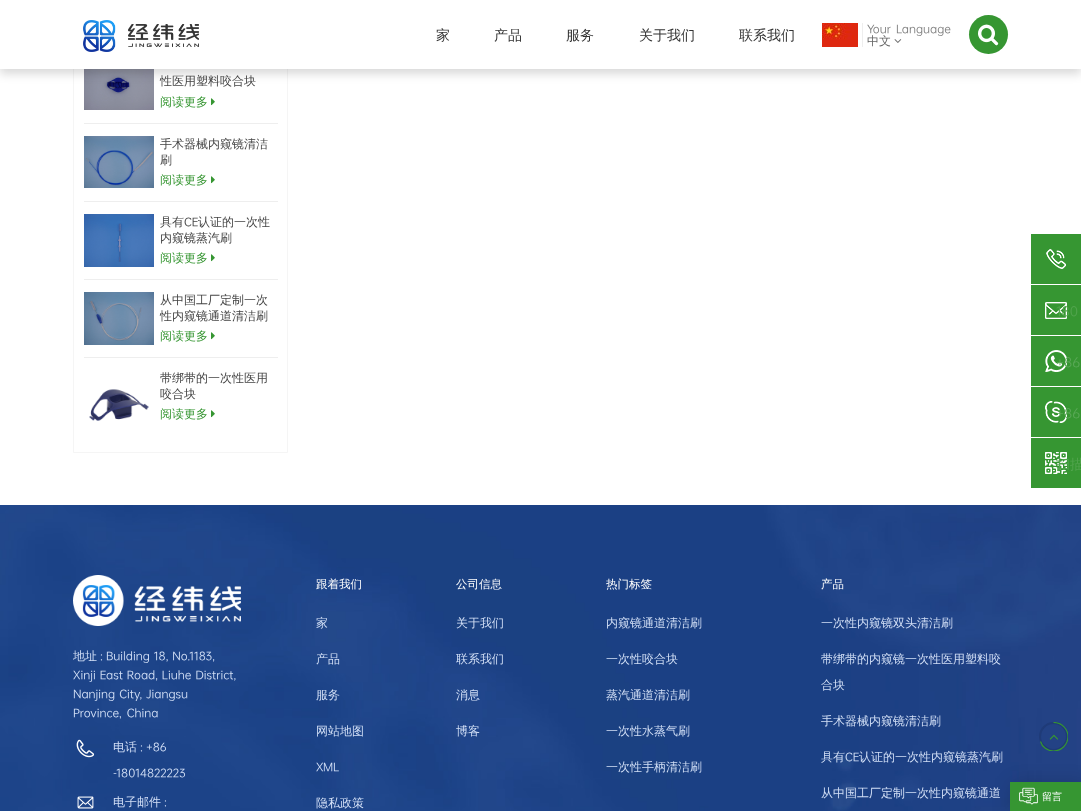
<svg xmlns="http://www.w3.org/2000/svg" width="1081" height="811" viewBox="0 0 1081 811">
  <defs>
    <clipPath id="clip1"><path d="M1039 722h29v29H1039z"/></clipPath>
  </defs>
  <rect width="100%" height="100%" fill="#fff"/>
  <path d="M73.5 -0.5h214v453H73.5z" fill="none" stroke="#f5f5f5"/>
  <image x="84" y="69" width="70" height="41" href="img/5.png"/>
  <path d="M0 5h1081v69H0z" fill="#00000026" filter="blur(5px)"/>
  <path d="M0 0h1081v69H0z" fill="#fff"/>
  <image x="83" y="20" width="116" height="32" href="img/1.png"/>
  <path d="M862 23h1v24H862z" fill="#eee"/>
  <image x="822" y="23" width="36" height="24" href="img/2.png"/>
  <image x="894" y="39" width="8" height="4" href="img/3.png"/>
  <circle cx="988.5" cy="34.5" r="19.5" fill="#369632"/>
  <image x="978" y="24" width="21" height="22" href="img/4.png"/>
  <path d="M84 123h194v1H84z" fill="#eee"/>
  <image x="211" y="98" width="4" height="8" href="img/6.png"/>
  <path d="M84 201h194v1H84z" fill="#eee"/>
  <image x="84" y="136" width="70" height="52" href="img/7.png"/>
  <image x="211" y="176" width="4" height="8" href="img/6.png"/>
  <path d="M84 279h194v1H84z" fill="#eee"/>
  <image x="84" y="214" width="70" height="53" href="img/8.png"/>
  <image x="211" y="254" width="4" height="8" href="img/6.png"/>
  <path d="M84 357h194v1H84z" fill="#eee"/>
  <image x="84" y="292" width="70" height="53" href="img/9.png"/>
  <image x="211" y="332" width="4" height="8" href="img/6.png"/>
  <image x="89" y="389" width="60" height="32" href="img/10.png"/>
  <image x="211" y="410" width="4" height="8" href="img/6.png"/>
  <path d="M1031 234h50v50H1031z" fill="#369632"/>
  <image x="1046" y="249" width="20" height="20" href="img/11.png"/>
  <path d="M1031 285h50v50H1031z" fill="#369632"/>
  <image x="1045" y="302" width="22" height="17" href="img/12.png"/>
  <path d="M1031 336h50v50H1031z" fill="#369632"/>
  <image x="1045" y="350" width="22" height="22" href="img/13.png"/>
  <path d="M1031 387h50v50H1031z" fill="#369632"/>
  <image x="1045" y="401" width="22" height="22" href="img/14.png"/>
  <path d="M1031 438h50v50H1031z" fill="#369632"/>
  <image x="1045" y="452" width="22" height="22" href="img/15.png"/>
  <image x="0" y="505" width="1081" height="306" href="img/16.png"/>
  <image x="73" y="575" width="168" height="51" href="img/17.png"/>
  <image x="76" y="739" width="19" height="19" href="img/18.png"/>
  <image x="77" y="796" width="17" height="13" href="img/19.png"/>
  <circle cx="1053.5" cy="736.5" r="13.5" fill="none" stroke="#1f3b78" stroke-width="2"/>
  <g clip-path="url(#clip1)">
    <path d="M1053.5 722.5C1061.5 722.5 1068 729 1068 736.5C1068 744.5 1061.5 751 1053.5 751C1047.5 751 1042 747 1040.5 741.5" fill="none" stroke="#369632" stroke-width="1.2"/>
  </g>
  <image x="1049" y="734" width="9" height="6" href="img/20.png"/>
  <path d="M1013 785h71v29H1013z" fill="#00000033" filter="blur(10px)"/>
  <path d="M1010 782h71v29H1010z" fill="#369632"/>
  <image x="1019" y="787" width="19" height="18" href="img/21.png"/>
  <g font-family="WenQuanYi Zen Hei" font-size="14" font-weight="500" fill="#333">
    <text x="436" y="40">家</text>
    <text x="494" y="40">产品</text>
    <text x="566" y="40">服务</text>
    <text x="639" y="40">关于我们</text>
    <text x="739" y="40">联系我们</text>
  </g>
  <text x="867" y="33" word-spacing="2" font-family="'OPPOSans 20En'" font-size="12" font-weight="500" fill="#808080">Your Language</text>
  <text x="867" y="45" font-family="WenQuanYi Zen Hei" font-size="12" font-weight="500" fill="#666">中文</text>
  <text x="160" y="85" font-family="WenQuanYi Zen Hei" font-size="12" font-weight="500" fill="#444">性医用塑料咬合块</text>
  <text x="160" y="106" font-family="WenQuanYi Zen Hei" font-size="12" font-weight="500" fill="#369632">阅读更多</text>
  <g font-family="WenQuanYi Zen Hei" font-size="12" font-weight="500" fill="#444">
    <text x="160" y="148">手术器械内窥镜清洁</text>
    <text x="160" y="164">刷</text>
  </g>
  <text x="160" y="184" font-family="WenQuanYi Zen Hei" font-size="12" font-weight="500" fill="#369632">阅读更多</text>
  <text x="160" y="226" font-family="WenQuanYi Zen Hei" font-size="12" font-weight="500" fill="#444">具有</text>
  <text x="184" y="226" font-family="'OPPOSans 20En'" font-size="12" font-weight="500" fill="#444">CE</text>
  <g font-family="WenQuanYi Zen Hei" font-size="12" font-weight="500" fill="#444">
    <text x="198" y="226">认证的一次性</text>
    <text x="160" y="242">内窥镜蒸汽刷</text>
  </g>
  <text x="160" y="262" font-family="WenQuanYi Zen Hei" font-size="12" font-weight="500" fill="#369632">阅读更多</text>
  <g font-family="WenQuanYi Zen Hei" font-size="12" font-weight="500" fill="#444">
    <text x="160" y="304">从中国工厂定制一次</text>
    <text x="160" y="320">性内窥镜通道清洁刷</text>
  </g>
  <text x="160" y="340" font-family="WenQuanYi Zen Hei" font-size="12" font-weight="500" fill="#369632">阅读更多</text>
  <g font-family="WenQuanYi Zen Hei" font-size="12" font-weight="500" fill="#444">
    <text x="160" y="382">带绑带的一次性医用</text>
    <text x="160" y="398">咬合块</text>
  </g>
  <text x="160" y="418" font-family="WenQuanYi Zen Hei" font-size="12" font-weight="500" fill="#369632">阅读更多</text>
  <text x="1056" y="316" font-family="'OPPOSans 20En'" font-size="14" font-weight="500" fill="#51a44d">180</text>
  <g font-family="'OPPOSans 20En'" font-size="14" font-weight="500" fill="#59a856">
    <text x="1056" y="367">+86</text>
    <text x="1056" y="418">+86</text>
  </g>
  <text x="1056" y="469" font-family="WenQuanYi Zen Hei" font-size="14" font-weight="500" fill="#51a44d">扫描</text>
  <text x="73" y="660" font-family="WenQuanYi Zen Hei" font-size="12" font-weight="500" fill="#d2dff6">地址</text>
  <g font-family="'OPPOSans 20En'" font-size="12" font-weight="500" fill="#d2dff6">
    <text x="100" y="660">:</text>
    <text x="106" y="660" word-spacing="1">Building 18, No.1183,</text>
    <text x="73" y="679" word-spacing="1">Xinji East Road, Liuhe District,</text>
    <text x="73" y="698" word-spacing="1">Nanjing City, Jiangsu</text>
    <text x="73" y="717" word-spacing="2">Province, China</text>
  </g>
  <text x="113" y="751" font-family="WenQuanYi Zen Hei" font-size="12" font-weight="500" fill="#d2dff6">电话</text>
  <g font-family="'OPPOSans 20En'" font-size="12" font-weight="500" fill="#d2dff6">
    <text x="140" y="751">: +86</text>
    <text x="113" y="777">-18014822223</text>
  </g>
  <text x="113" y="806" font-family="WenQuanYi Zen Hei" font-size="12" font-weight="500" fill="#d2dff6">电子邮件</text>
  <text x="164" y="806" font-family="'OPPOSans 20En'" font-size="12" font-weight="500" fill="#d2dff6">:</text>
  <text x="316" y="588" font-family="WenQuanYi Zen Hei" font-size="11.5" font-weight="500" fill="#fff">跟着我们</text>
  <g font-family="WenQuanYi Zen Hei" font-size="12" font-weight="500" fill="#d2dff6">
    <text x="316" y="627">家</text>
    <text x="316" y="663">产品</text>
    <text x="316" y="699">服务</text>
    <text x="316" y="735">网站地图</text>
  </g>
  <text x="316" y="771" font-family="'OPPOSans 20En'" font-size="12" font-weight="500" fill="#d2dff6">XML</text>
  <text x="316" y="807" font-family="WenQuanYi Zen Hei" font-size="12" font-weight="500" fill="#d2dff6">隐私政策</text>
  <text x="456" y="588" font-family="WenQuanYi Zen Hei" font-size="11.5" font-weight="500" fill="#fff">公司信息</text>
  <g font-family="WenQuanYi Zen Hei" font-size="12" font-weight="500" fill="#d2dff6">
    <text x="456" y="627">关于我们</text>
    <text x="456" y="663">联系我们</text>
    <text x="456" y="699">消息</text>
    <text x="456" y="735">博客</text>
  </g>
  <text x="606" y="588" font-family="WenQuanYi Zen Hei" font-size="11.5" font-weight="500" fill="#fff">热门标签</text>
  <g font-family="WenQuanYi Zen Hei" font-size="12" font-weight="500" fill="#d2dff6">
    <text x="606" y="627">内窥镜通道清洁刷</text>
    <text x="606" y="663">一次性咬合块</text>
    <text x="606" y="699">蒸汽通道清洁刷</text>
    <text x="606" y="735">一次性水蒸气刷</text>
    <text x="606" y="771">一次性手柄清洁刷</text>
  </g>
  <text x="821" y="588" font-family="WenQuanYi Zen Hei" font-size="11.5" font-weight="500" fill="#fff">产品</text>
  <g font-family="WenQuanYi Zen Hei" font-size="12" font-weight="500" fill="#d2dff6">
    <text x="821" y="627">一次性内窥镜双头清洁刷</text>
    <text x="821" y="663">带绑带的内窥镜一次性医用塑料咬</text>
    <text x="821" y="689">合块</text>
    <text x="821" y="725">手术器械内窥镜清洁刷</text>
    <text x="821" y="761">具有</text>
  </g>
  <text x="845" y="761" font-family="'OPPOSans 20En'" font-size="12" font-weight="500" fill="#d2dff6">CE</text>
  <g font-family="WenQuanYi Zen Hei" font-size="12" font-weight="500" fill="#d2dff6">
    <text x="859" y="761">认证的一次性内窥镜蒸汽刷</text>
    <text x="821" y="797">从中国工厂定制一次性内窥镜通道</text>
  </g>
  <text x="1042" y="800" font-family="WenQuanYi Zen Hei" font-size="10" font-weight="500" fill="#fff">留言</text>
</svg>
